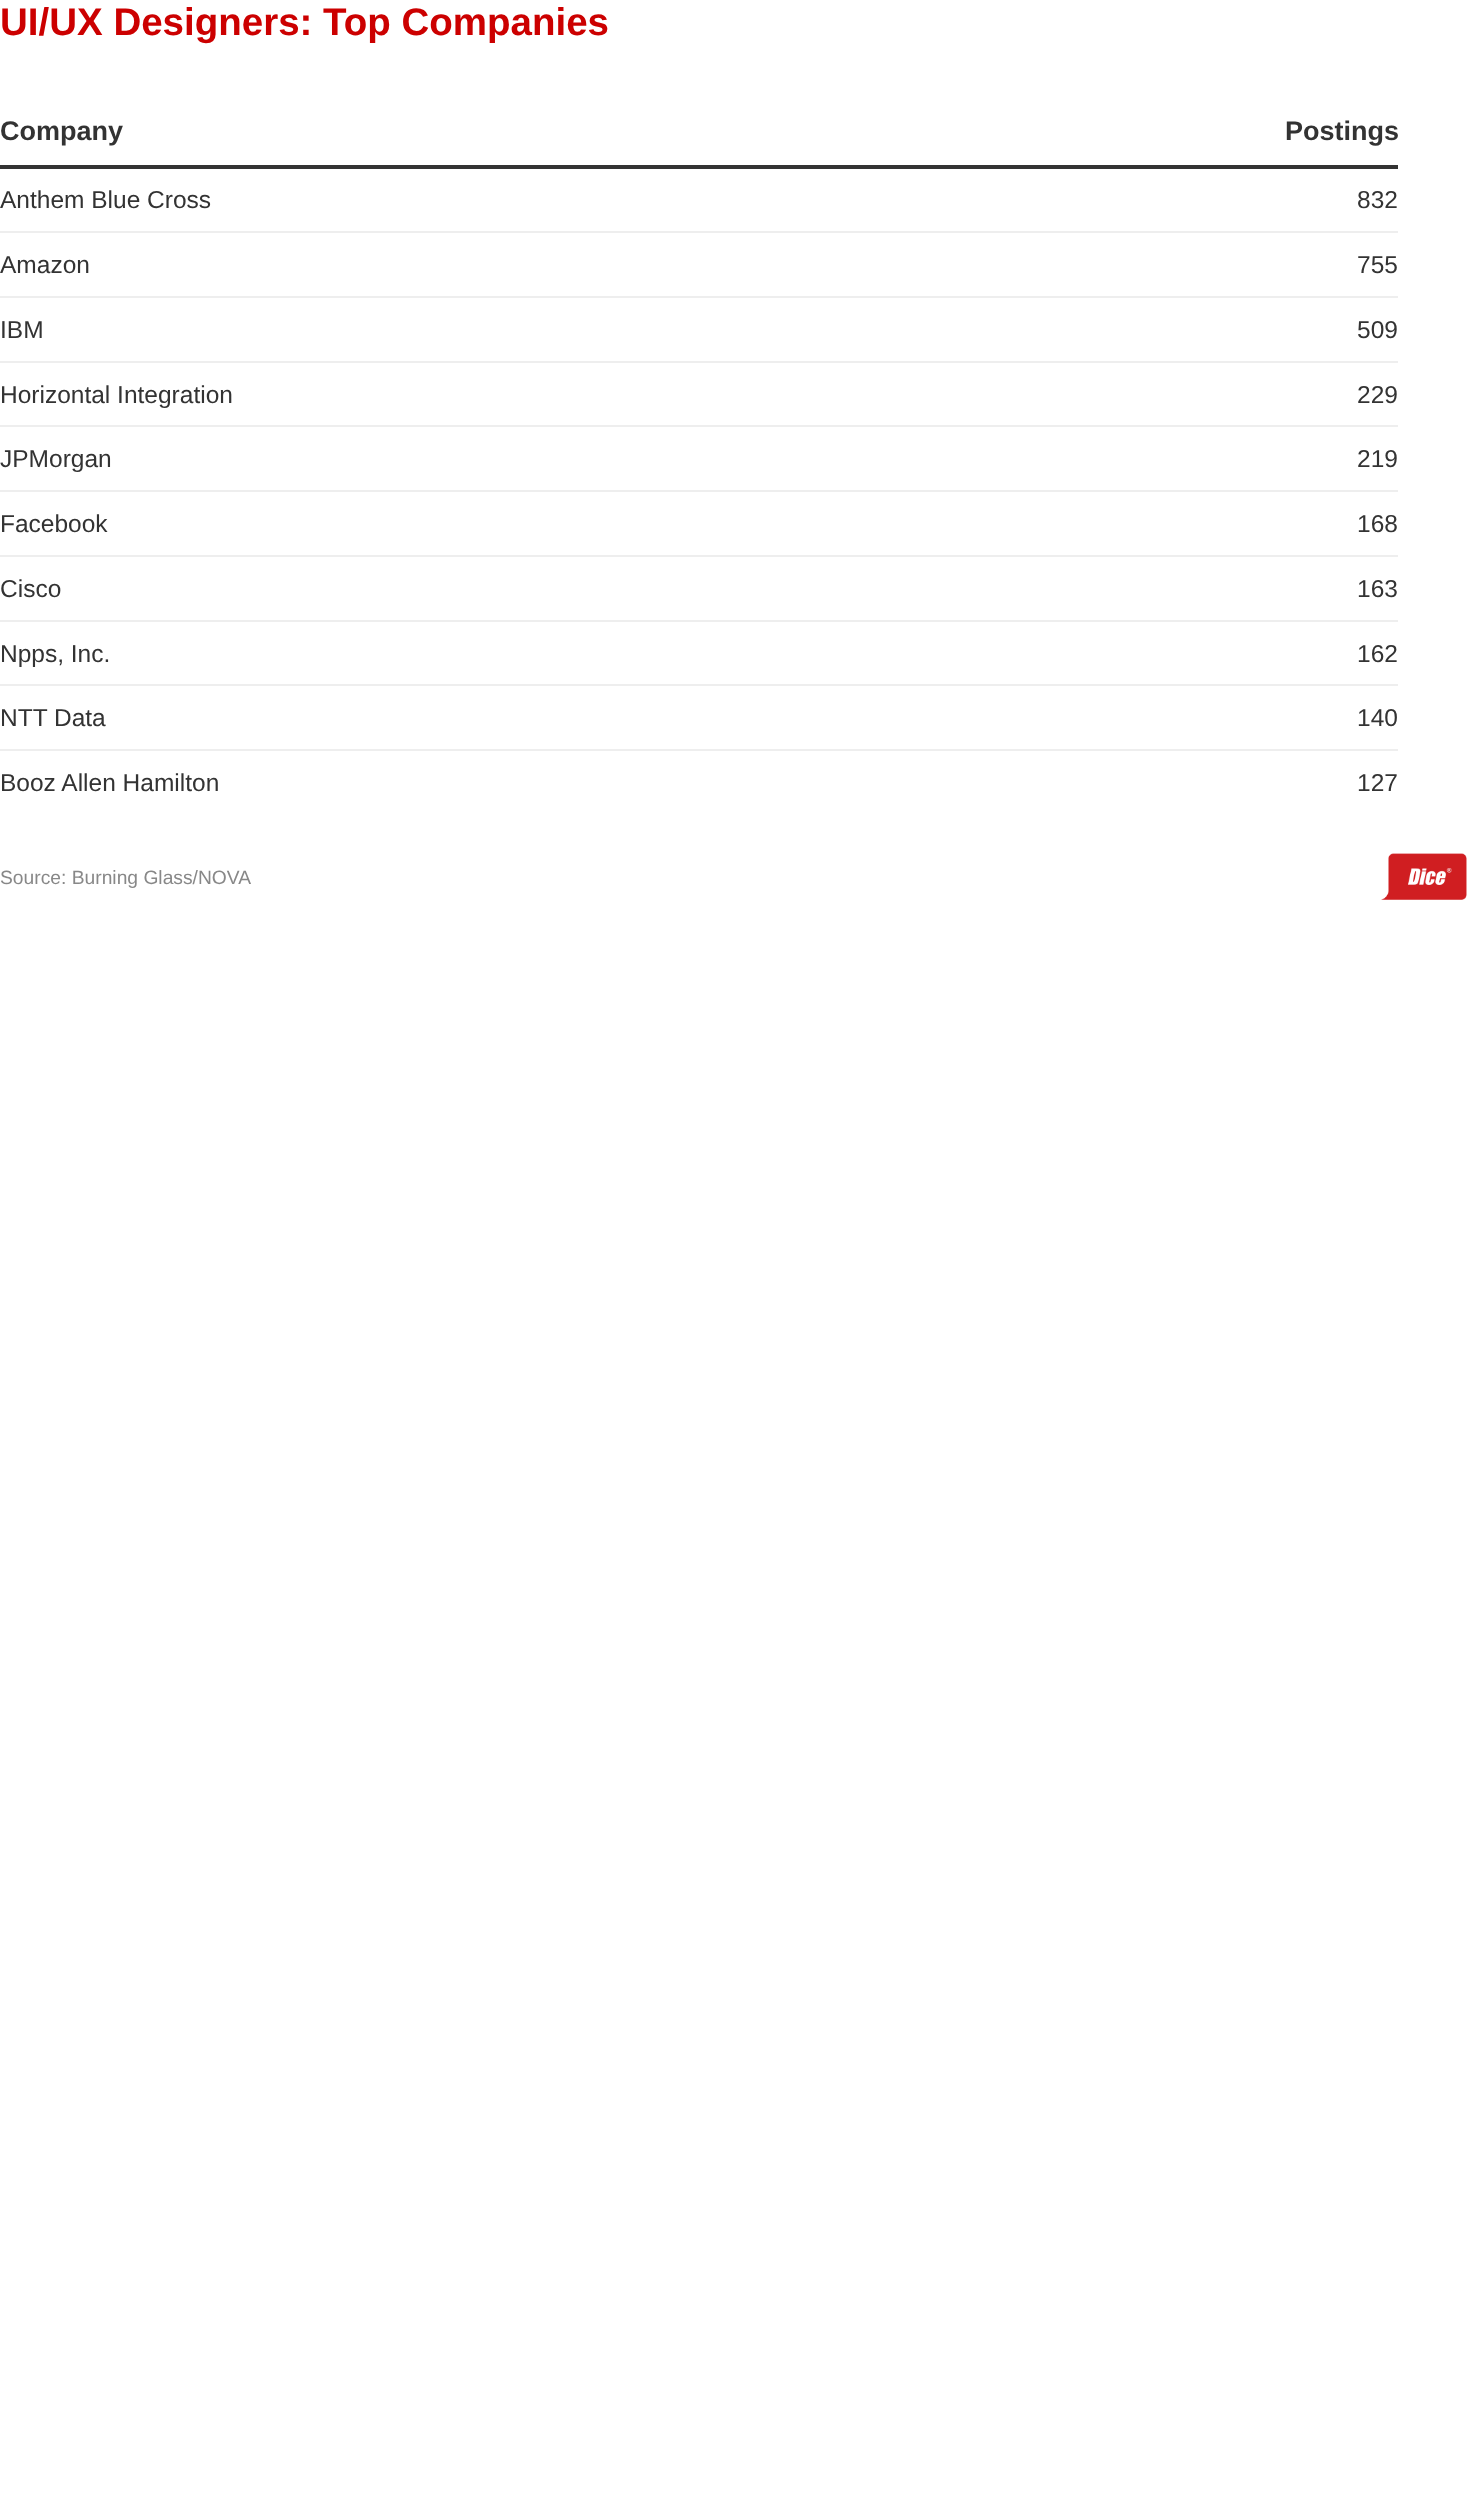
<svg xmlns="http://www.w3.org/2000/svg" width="1468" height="2501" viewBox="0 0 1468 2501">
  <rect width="100%" height="100%" fill="#fff"/>
  <path d="M0 165h1398v4H0z" fill="#333"/>
  <path d="M0 231h1398v2H0z" fill="#eee"/>
  <path d="M0 296h1398v2H0z" fill="#eee"/>
  <path d="M0 361h1398v2H0z" fill="#eee"/>
  <path d="M0 425h1398v2H0z" fill="#eee"/>
  <path d="M0 490h1398v2H0z" fill="#eee"/>
  <path d="M0 555h1398v2H0z" fill="#eee"/>
  <path d="M0 620h1398v2H0z" fill="#eee"/>
  <path d="M0 684h1398v2H0z" fill="#eee"/>
  <path d="M0 749h1398v2H0z" fill="#eee"/>
  <image x="1381" y="853" width="86" height="47" href="img/1.png"/>
  <text x="0" y="35" font-family="Liberation Sans" font-size="38.5" font-weight="bold" fill="#c00">UI/UX Designers: Top Companies</text>
  <g font-family="Liberation Sans" font-size="27" font-weight="bold" fill="#333">
    <text x="0" y="140">Company</text>
    <text x="1285" y="140">Postings</text>
  </g>
  <g font-family="Liberation Sans" font-size="24.5" fill="#333">
    <text x="0" y="208">Anthem Blue Cross</text>
    <text x="1357" y="208">832</text>
    <text x="0" y="273">Amazon</text>
    <text x="1357" y="273">755</text>
    <text x="0" y="338">IBM</text>
    <text x="1357" y="338">509</text>
    <text x="0" y="403">Horizontal Integration</text>
    <text x="1357" y="403">229</text>
    <text x="0" y="467">JPMorgan</text>
    <text x="1357" y="467">219</text>
    <text x="0" y="532">Facebook</text>
    <text x="1357" y="532">168</text>
    <text x="0" y="597">Cisco</text>
    <text x="1357" y="597">163</text>
    <text x="0" y="662">Npps, Inc.</text>
    <text x="1357" y="662">162</text>
    <text x="0" y="726">NTT Data</text>
    <text x="1357" y="726">140</text>
    <text x="0" y="791">Booz Allen Hamilton</text>
    <text x="1357" y="791">127</text>
  </g>
  <text x="0" y="884" font-family="Liberation Sans" font-size="19.25" fill="#888">Source: Burning Glass/NOVA</text>
</svg>
